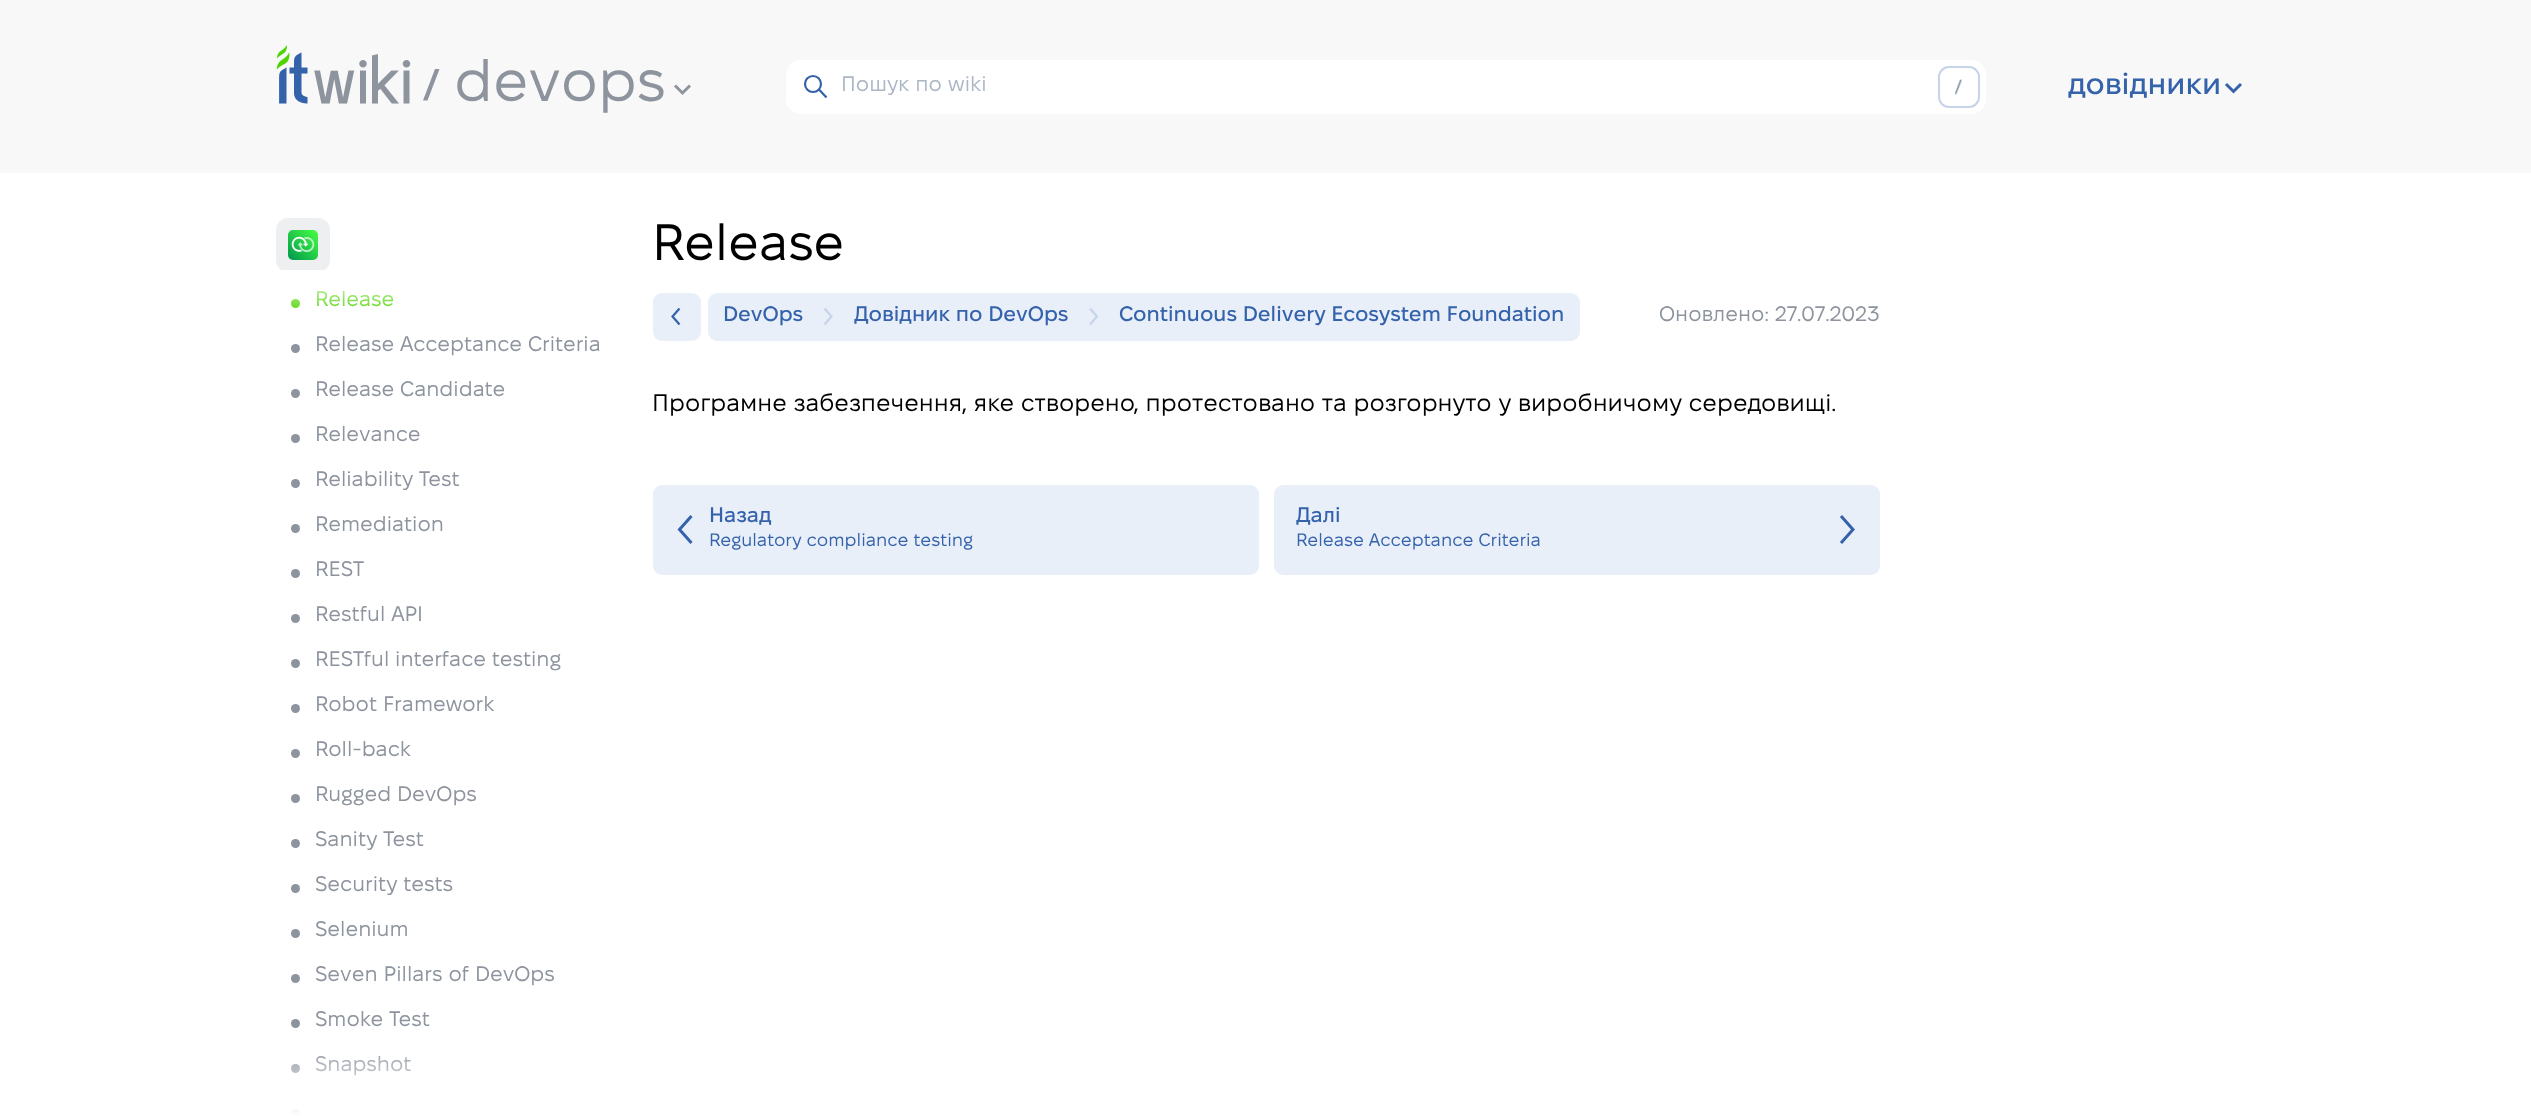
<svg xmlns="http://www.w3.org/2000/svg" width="2531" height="1116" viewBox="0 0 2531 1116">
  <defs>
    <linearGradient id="g1" gradientUnits="userSpaceOnUse" x1="318" y1="230" x2="288" y2="260"><stop offset="0" stop-color="#46ff42"/><stop offset="1" stop-color="#00974e"/></linearGradient>
    <linearGradient id="g2" gradientUnits="userSpaceOnUse" x1="442" y1="315" x2="442" y2="270"><stop offset="0" stop-color="#fff" stop-opacity="0"/><stop offset="1" stop-color="#fff"/></linearGradient>
    <linearGradient id="g3" gradientUnits="userSpaceOnUse" x1="442" y1="1041" x2="442" y2="1116"><stop offset="0" stop-color="#fff" stop-opacity="0"/><stop offset="1" stop-color="#fff"/></linearGradient>
  </defs>
  <rect width="100%" height="100%" fill="#fff"/>
  <path d="M0 0h2531v173H0z" fill="#f8f8f8"/>
  <image x="276" y="45" width="135" height="59" href="img/1.png"/>
  <path d="M423 100.5L435 69H439.5L427.5 100.5Z" fill="#8d949e" fill-rule="evenodd"/>
  <path d="M675 85.5L682.5 93L690 85.5" fill="none" stroke="#8d949e" stroke-width="3"/>
  <rect x="786" y="60" width="1200" height="54" rx="15" fill="#fff"/>
  <circle cx="813" cy="84" r="8" fill="none" stroke="#3462ab" stroke-width="2.2"/>
  <path d="M818.5 89L826.5 97.5" fill="none" stroke="#3462ab" stroke-width="2.2"/>
  <rect x="1939" y="67" width="40" height="40" rx="10" fill="none" stroke="#c6d3e9" stroke-width="2"/>
  <image x="1955" y="79" width="7" height="16" href="img/2.png"/>
  <path d="M2226 84L2233.5 91.5L2241 84" fill="none" stroke="#3462ab" stroke-width="3"/>
  <rect x="276" y="218" width="54" height="54" rx="12" fill="#eeeff1"/>
  <rect x="288" y="230" width="30" height="30" rx="5" fill="url(#g1)"/>
  <image x="291" y="236" width="24" height="16" href="img/3.png"/>
  <circle cx="295.5" cy="303.5" r="4.5" fill="#4ed401"/>
  <circle cx="295.5" cy="348.5" r="4.5" fill="#8d949e"/>
  <circle cx="295.5" cy="393.5" r="4.5" fill="#8d949e"/>
  <circle cx="295.5" cy="438.5" r="4.5" fill="#8d949e"/>
  <circle cx="295.5" cy="483.5" r="4.5" fill="#8d949e"/>
  <circle cx="295.5" cy="528.5" r="4.5" fill="#8d949e"/>
  <circle cx="295.5" cy="573.5" r="4.5" fill="#8d949e"/>
  <circle cx="295.5" cy="618.5" r="4.5" fill="#8d949e"/>
  <circle cx="295.5" cy="663.5" r="4.5" fill="#8d949e"/>
  <circle cx="295.5" cy="708.5" r="4.5" fill="#8d949e"/>
  <circle cx="295.5" cy="753.5" r="4.5" fill="#8d949e"/>
  <circle cx="295.5" cy="798.5" r="4.5" fill="#8d949e"/>
  <circle cx="295.5" cy="843.5" r="4.5" fill="#8d949e"/>
  <circle cx="295.5" cy="888.5" r="4.5" fill="#8d949e"/>
  <circle cx="295.5" cy="933.5" r="4.5" fill="#8d949e"/>
  <circle cx="295.5" cy="978.5" r="4.5" fill="#8d949e"/>
  <circle cx="295.5" cy="1023.5" r="4.5" fill="#8d949e"/>
  <circle cx="295.5" cy="1068.5" r="4.5" fill="#8d949e"/>
  <circle cx="295.5" cy="1113.5" r="4.5" fill="#8d949e"/>
  <rect x="653" y="293" width="48" height="48" rx="9" fill="#e9eff9"/>
  <path d="M679.5 324.5L672.5 316.5L679.5 308.5" fill="none" stroke="#3462ab" stroke-width="2.2"/>
  <rect x="708" y="293" width="872" height="48" rx="9" fill="#e9eff9"/>
  <path d="M824.5 308.5L831.5 316.5L824.5 324.5" fill="none" stroke="#c6d3e9" stroke-width="2.2"/>
  <path d="M1090 308.5L1097 316.5L1090 324.5" fill="none" stroke="#c6d3e9" stroke-width="2.2"/>
  <rect x="653" y="485" width="606" height="90" rx="9" fill="#e9eff9"/>
  <path d="M691.5 516L679.5 529.5L691.5 543" fill="none" stroke="#3462ab" stroke-width="3"/>
  <rect x="1274" y="485" width="606" height="90" rx="9" fill="#e9eff9"/>
  <path d="M1841 543L1853 529.5L1841 516" fill="none" stroke="#3462ab" stroke-width="3"/>
  <text x="454" y="101" font-family="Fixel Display" font-size="58.5" fill="#8d949e">devops</text>
  <text x="841" y="91" font-family="Fixel Display" font-size="21" fill="#acb6c5">Пошук по wiki</text>
  <text x="2068" y="94" font-family="Fixel Display" font-size="30" font-weight="500" fill="#3462ab">довідники</text>
  <text x="315" y="306" font-family="Fixel Display" font-size="21" fill="#4ed401">Release</text>
  <path d="M282 270h111v38H282z" fill="url(#g2)"/>
  <g font-family="Fixel Display" font-size="21" fill="#8d949e">
    <text x="315" y="351">Release Acceptance Criteria</text>
    <text x="315" y="396">Release Candidate</text>
    <text x="315" y="441">Relevance</text>
    <text x="315" y="486">Reliability Test</text>
    <text x="315" y="531">Remediation</text>
    <text x="315" y="576">REST</text>
    <text x="315" y="621">Restful API</text>
    <text x="315" y="666">RESTful interface testing</text>
    <text x="315" y="711">Robot Framework</text>
    <text x="315" y="756">Roll‐back</text>
    <text x="315" y="801">Rugged DevOps</text>
    <text x="315" y="846">Sanity Test</text>
    <text x="315" y="891">Security tests</text>
    <text x="315" y="936">Selenium</text>
    <text x="315" y="981">Seven Pillars of DevOps</text>
    <text x="315" y="1026">Smoke Test</text>
    <text x="315" y="1071">Snapshot</text>
  </g>
  <path d="M291 1055h120v61H291z" fill="url(#g3)"/>
  <text x="652" y="260" font-family="Fixel Display" font-size="51" fill="#000">Release</text>
  <g font-family="Fixel Display" font-size="21" font-weight="500" fill="#3462ab">
    <text x="723" y="321">DevOps</text>
    <text x="854" y="321">Довідник по DevOps</text>
    <text x="1119" y="321">Continuous Delivery Ecosystem Foundation</text>
  </g>
  <text x="1659" y="321" font-family="Fixel Display" font-size="21" fill="#8d949e">Оновлено: 27.07.2023</text>
  <text x="652" y="411" font-family="Fixel Display" font-size="24" fill="#000">Програмне забезпечення, яке створено, протестовано та розгорнуто у виробничому середовищі.</text>
  <text x="709" y="522" font-family="Fixel Display" font-size="21" font-weight="500" fill="#3462ab">Назад</text>
  <text x="709" y="546" font-family="Fixel Display" font-size="18" fill="#3462ab">Regulatory compliance testing</text>
  <text x="1296" y="522" font-family="Fixel Display" font-size="21" font-weight="500" fill="#3462ab">Далі</text>
  <text x="1296" y="546" font-family="Fixel Display" font-size="18" fill="#3462ab">Release Acceptance Criteria</text>
</svg>
